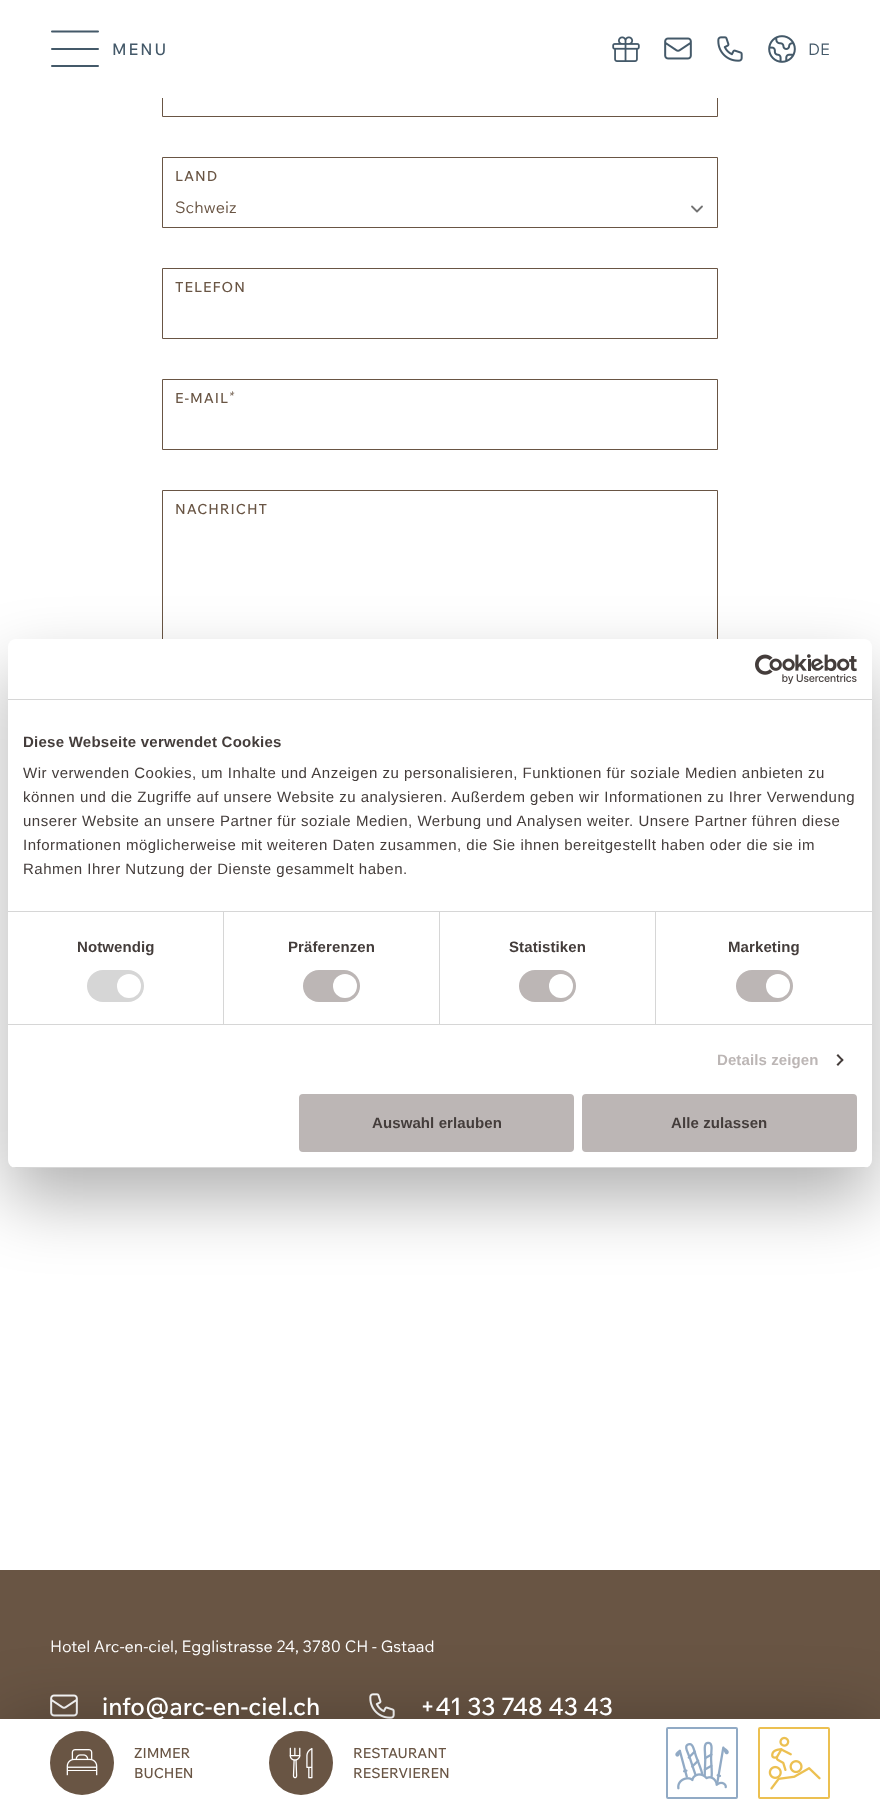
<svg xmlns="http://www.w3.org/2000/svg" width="880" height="1807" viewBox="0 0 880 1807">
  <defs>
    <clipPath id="clip1"><rect x="8" y="639" width="864" height="529" rx="8"/></clipPath>
  </defs>
  <rect width="100%" height="100%" fill="#fff"/>
  <path d="M162.5 46.5h555v70H162.5z" fill="none" stroke="#695544"/>
  <path d="M162 46h556v52H162z" fill="#fff"/>
  <path d="M52 31.5H98M52 49H98M52 66H98" fill="none" stroke="#445969" stroke-width="2" stroke-linecap="round" stroke-linejoin="round"/>
  <image x="612" y="36" width="28" height="26" href="img/1.png"/>
  <image x="664" y="37" width="28" height="23" href="img/2.png"/>
  <image x="717" y="36" width="26" height="26" href="img/3.png"/>
  <image x="768" y="35" width="28" height="28" href="img/4.png"/>
  <path d="M162.5 157.5h555v70H162.5z" fill="none" stroke="#695544"/>
  <path d="M692 206.5L697 211.5L702 206.5" fill="none" stroke="#737373" stroke-width="1.8" stroke-linecap="round" stroke-linejoin="round"/>
  <path d="M162.5 268.5h555v70H162.5z" fill="none" stroke="#695544"/>
  <path d="M162.5 379.5h555v70H162.5z" fill="none" stroke="#695544"/>
  <path d="M162.5 490.5h555v286H162.5z" fill="none" stroke="#695544"/>
  <rect x="8" y="671" width="864" height="529" rx="8" fill="#0000004d" filter="blur(34px)"/>
  <rect x="8" y="639" width="864" height="529" rx="8" fill="#fff"/>
  <path d="M8 699h864v1H8z" fill="#d6d6d6"/>
  <image x="755" y="654" width="102" height="30" href="img/5.png"/>
  <path d="M8 911h864v1H8z" fill="#d6d6d6"/>
  <path d="M8 1024h864v1H8z" fill="#d6d6d6"/>
  <path d="M223 912h1v112H223z" fill="#d6d6d6"/>
  <rect x="87" y="970" width="57" height="32" rx="16" fill="#d6d6d6"/>
  <circle cx="129" cy="986" r="12" fill="#fff"/>
  <path d="M439 912h1v112H439z" fill="#d6d6d6"/>
  <rect x="303" y="970" width="57" height="32" rx="16" fill="#bcb6b5"/>
  <circle cx="345" cy="986" r="12" fill="#fff"/>
  <path d="M655 912h1v112H655z" fill="#d6d6d6"/>
  <rect x="519" y="970" width="57" height="32" rx="16" fill="#bcb6b5"/>
  <circle cx="561" cy="986" r="12" fill="#fff"/>
  <rect x="736" y="970" width="57" height="32" rx="16" fill="#bcb6b5"/>
  <circle cx="778" cy="986" r="12" fill="#fff"/>
  <path d="M838 1054L843.5 1060L842.5 1061.5L836.5 1055.5Z" fill="#443d3b"/>
  <path d="M842.5 1058.5L843.5 1060L838 1066L836.5 1064.5Z" fill="#443d3b"/>
  <g clip-path="url(#clip1)">
    <path d="M8 1167h864v1H8z" fill="#d6d6d6"/>
  </g>
  <rect x="300" y="1095" width="273" height="56" rx="3" fill="#bcb6b5" stroke="#bcb6b5" stroke-width="2"/>
  <rect x="583" y="1095" width="273" height="56" rx="3" fill="#bcb6b5" stroke="#bcb6b5" stroke-width="2"/>
  <path d="M0 1570h880v149H0z" fill="#695544"/>
  <image x="50" y="1694" width="28" height="23" href="img/6.png"/>
  <image x="369" y="1693" width="26" height="26" href="img/7.png"/>
  <path d="M0 1721h880v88H0z" fill="#00000040" filter="blur(35px)"/>
  <path d="M0 1719h880v88H0z" fill="#fff"/>
  <circle cx="82" cy="1763" r="32" fill="#695544"/>
  <image x="66" y="1749" width="32" height="27" href="img/8.png"/>
  <circle cx="301" cy="1763" r="32" fill="#695544"/>
  <image x="289" y="1747" width="24" height="32" href="img/9.png"/>
  <rect x="667" y="1728" width="70" height="70" rx="1" fill="none" stroke="#91aac5" stroke-width="2"/>
  <image x="675" y="1741" width="54" height="49" href="img/10.png"/>
  <rect x="759" y="1728" width="70" height="70" rx="1" fill="none" stroke="#ecc051" stroke-width="2"/>
  <image x="768" y="1736" width="53" height="54" href="img/11.png"/>
  <text x="112" y="55" font-family="Wix Madefor Text" font-size="16" font-weight="500" letter-spacing="2" fill="#445969">MENU</text>
  <text x="808" y="55" font-family="Wix Madefor Text" font-size="16" fill="#445969">DE</text>
  <text x="175" y="181" font-family="Wix Madefor Text" font-size="14" font-weight="500" letter-spacing="1" fill="#695544">LAND</text>
  <text x="175" y="213" font-family="Wix Madefor Text" font-size="16" fill="#695544">Schweiz</text>
  <g font-family="Wix Madefor Text" font-size="14" font-weight="500" letter-spacing="1" fill="#695544">
    <text x="175" y="292">TELEFON</text>
    <text x="175" y="403">E-MAIL</text>
  </g>
  <text x="229" y="400" font-family="Wix Madefor Text" font-size="12" font-style="italic" letter-spacing="1" fill="#695544">*</text>
  <text x="175" y="514" font-family="Wix Madefor Text" font-size="14" font-weight="500" letter-spacing="1" fill="#695544">NACHRICHT</text>
  <text x="23" y="747" font-family="Liberation Sans" font-size="15" font-weight="bold" letter-spacing="0.25" fill="#443d3b">Diese Webseite verwendet Cookies</text>
  <g font-family="Liberation Sans" font-size="15" letter-spacing="0.5" fill="#443d3b">
    <text x="23" y="778">Wir verwenden Cookies, um Inhalte und Anzeigen zu personalisieren, Funktionen für soziale Medien anbieten zu</text>
    <text x="23" y="802">können und die Zugriffe auf unsere Website zu analysieren. Außerdem geben wir Informationen zu Ihrer Verwendung</text>
    <text x="23" y="826">unserer Website an unsere Partner für soziale Medien, Werbung und Analysen weiter. Unsere Partner führen diese</text>
    <text x="23" y="850">Informationen möglicherweise mit weiteren Daten zusammen, die Sie ihnen bereitgestellt haben oder die sie im</text>
    <text x="23" y="874">Rahmen Ihrer Nutzung der Dienste gesammelt haben.</text>
  </g>
  <g font-family="Liberation Sans" font-size="15" font-weight="bold" letter-spacing="0.1" fill="#443d3b">
    <text x="77" y="952">Notwendig</text>
    <text x="288" y="952">Präferenzen</text>
    <text x="509" y="952">Statistiken</text>
    <text x="728" y="952">Marketing</text>
  </g>
  <text x="717" y="1065" font-family="Liberation Sans" font-size="15" font-weight="bold" letter-spacing="0.1" fill="#bcb6b5">Details zeigen</text>
  <g font-family="Liberation Sans" font-size="15" font-weight="bold" letter-spacing="0.1" fill="#443d3b">
    <text x="372" y="1128">Auswahl erlauben</text>
    <text x="671" y="1128">Alle zulassen</text>
  </g>
  <text x="50" y="1652" font-family="Wix Madefor Text" font-size="16" fill="#fff">Hotel Arc-en-ciel, Egglistrasse 24, 3780 CH - Gstaad</text>
  <g font-family="Wix Madefor Text" font-size="24" font-weight="500" fill="#fff">
    <text x="102" y="1715">info@arc-en-ciel.ch</text>
    <text x="420" y="1715">+41 33 748 43 43</text>
  </g>
  <g font-family="Wix Madefor Text" font-size="14" font-weight="500" fill="#695544">
    <text x="134" y="1758">ZIMMER</text>
    <text x="134" y="1778">BUCHEN</text>
    <text x="353" y="1758">RESTAURANT</text>
    <text x="353" y="1778">RESERVIEREN</text>
  </g>
</svg>
